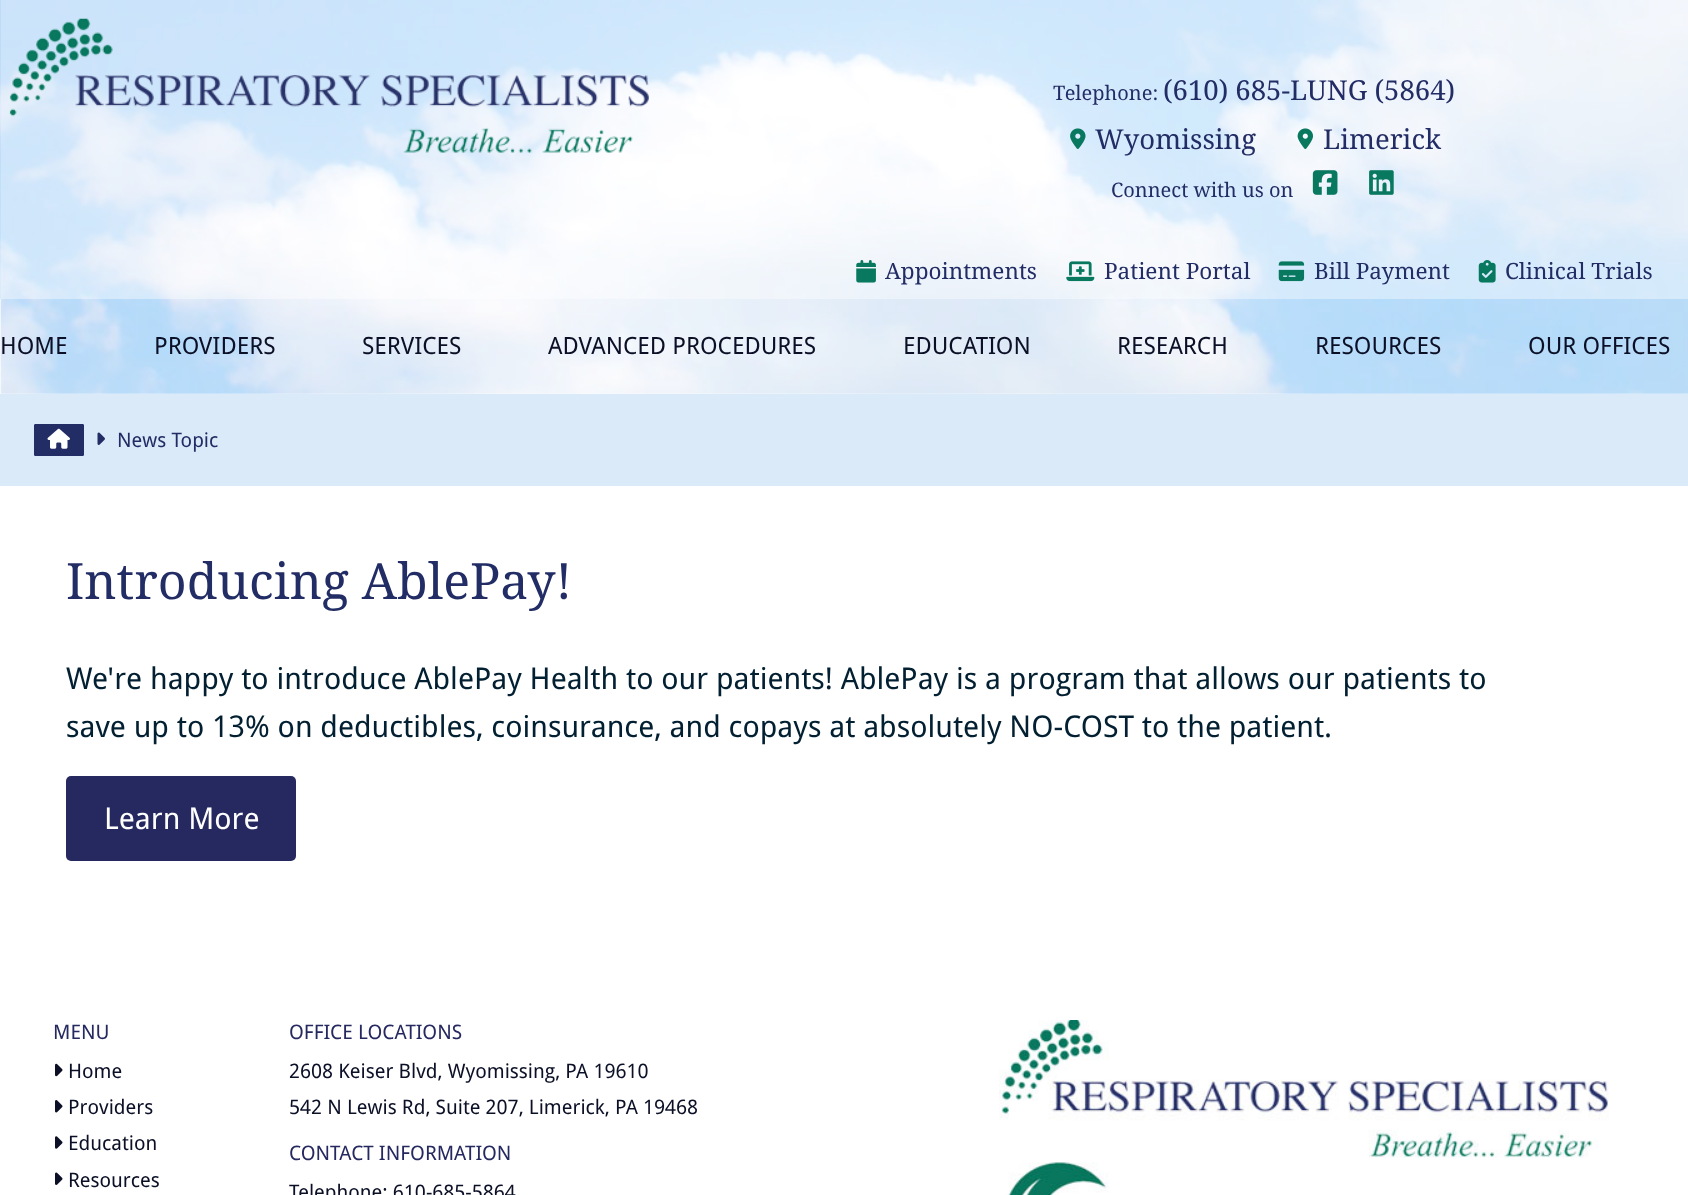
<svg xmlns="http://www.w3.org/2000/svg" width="1688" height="1195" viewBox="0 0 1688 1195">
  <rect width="100%" height="100%" fill="#fff"/>
  <image x="0" y="0" width="1688" height="394" href="img/1.png"/>
  <path d="M1 0h1687v299H1z" fill="#ffffffb3"/>
  <image x="9" y="18" width="104" height="99" href="img/2.png"/>
  <image x="75" y="75" width="574" height="78" href="img/3.png"/>
  <image x="1070" y="128" width="16" height="21" href="img/4.png"/>
  <image x="1297" y="128" width="16" height="21" href="img/5.png"/>
  <image x="1312" y="170" width="26" height="25" href="img/6.png"/>
  <image x="1369" y="170" width="25" height="25" href="img/7.png"/>
  <image x="856" y="260" width="20" height="23" href="img/8.png"/>
  <image x="1066" y="261" width="29" height="21" href="img/9.png"/>
  <image x="1278" y="261" width="27" height="21" href="img/10.png"/>
  <image x="1478" y="260" width="18" height="23" href="img/11.png"/>
  <path d="M0 299h1688v95H0z" fill="#ffffff80"/>
  <path d="M0 394h1688v92H0z" fill="#dbeaf8"/>
  <rect x="34.5" y="424.5" width="49" height="31" rx="0.5" fill="#222c65" stroke="#222c65"/>
  <image x="47" y="428" width="23" height="21" href="img/12.png"/>
  <image x="97" y="432" width="8" height="13" href="img/13.png"/>
  <rect x="66" y="776" width="230" height="85" rx="5" fill="#25295f"/>
  <image x="55" y="1063" width="8" height="14" href="img/14.png"/>
  <image x="55" y="1100" width="8" height="13" href="img/15.png"/>
  <image x="55" y="1136" width="8" height="13" href="img/16.png"/>
  <image x="55" y="1172" width="8" height="13" href="img/17.png"/>
  <image x="999" y="1020" width="610" height="138" href="img/18.png"/>
  <image x="1004" y="1162" width="105" height="33" href="img/19.png"/>
  <text x="1053" y="100" font-family="Droid Serif" font-size="20" fill="#222c65">Telephone:</text>
  <g font-family="Droid Serif" font-size="27.5" fill="#222c65">
    <text x="1163" y="100">(610) 685-LUNG (5864)</text>
    <text x="1095" y="149">Wyomissing</text>
    <text x="1323" y="149">Limerick</text>
  </g>
  <text x="1111" y="197" font-family="Droid Serif" font-size="20" fill="#222c65">Connect with us on</text>
  <g font-family="Droid Serif" font-size="22.5" fill="#222c65">
    <text x="885" y="279">Appointments</text>
    <text x="1104" y="279">Patient Portal</text>
    <text x="1314" y="279">Bill Payment</text>
    <text x="1505" y="279">Clinical Trials</text>
  </g>
  <g font-family="Droid Sans" font-size="23.75" fill="#0c1026">
    <text x="0" y="354">HOME</text>
    <text x="154" y="354">PROVIDERS</text>
    <text x="362" y="354">SERVICES</text>
    <text x="548" y="354">ADVANCED PROCEDURES</text>
    <text x="903" y="354">EDUCATION</text>
    <text x="1117" y="354">RESEARCH</text>
    <text x="1315" y="354">RESOURCES</text>
    <text x="1528" y="354">OUR OFFICES</text>
  </g>
  <text x="117" y="447" font-family="Droid Sans" font-size="20" fill="#222c65">News Topic</text>
  <text x="66" y="599" font-family="Droid Serif" font-size="50" fill="#222c65">Introducing AblePay!</text>
  <g font-family="Droid Sans" font-size="30" fill="#032032">
    <text x="66" y="689">We're happy to introduce AblePay Health to our patients! AblePay is a program that allows our patients to</text>
    <text x="66" y="737">save up to 13% on deductibles, coinsurance, and copays at absolutely NO-COST to the patient.</text>
  </g>
  <text x="104" y="829" font-family="Droid Sans" font-size="30" fill="#fff">Learn More</text>
  <text x="53" y="1039" font-family="Droid Sans" font-size="20" fill="#25295f">MENU</text>
  <g font-family="Droid Sans" font-size="20" fill="#0c1026">
    <text x="68" y="1078">Home</text>
    <text x="68" y="1114">Providers</text>
    <text x="68" y="1150">Education</text>
    <text x="68" y="1187">Resources</text>
  </g>
  <text x="289" y="1039" font-family="Droid Sans" font-size="20" fill="#25295f">OFFICE LOCATIONS</text>
  <g font-family="Droid Sans" font-size="20" fill="#0c1026">
    <text x="289" y="1078">2608 Keiser Blvd, Wyomissing, PA 19610</text>
    <text x="289" y="1114">542 N Lewis Rd, Suite 207, Limerick, PA 19468</text>
  </g>
  <text x="289" y="1160" font-family="Droid Sans" font-size="20" fill="#25295f">CONTACT INFORMATION</text>
  <text x="289" y="1199" font-family="Droid Sans" font-size="20" fill="#0c1026">Telephone: 610-685-5864</text>
</svg>
